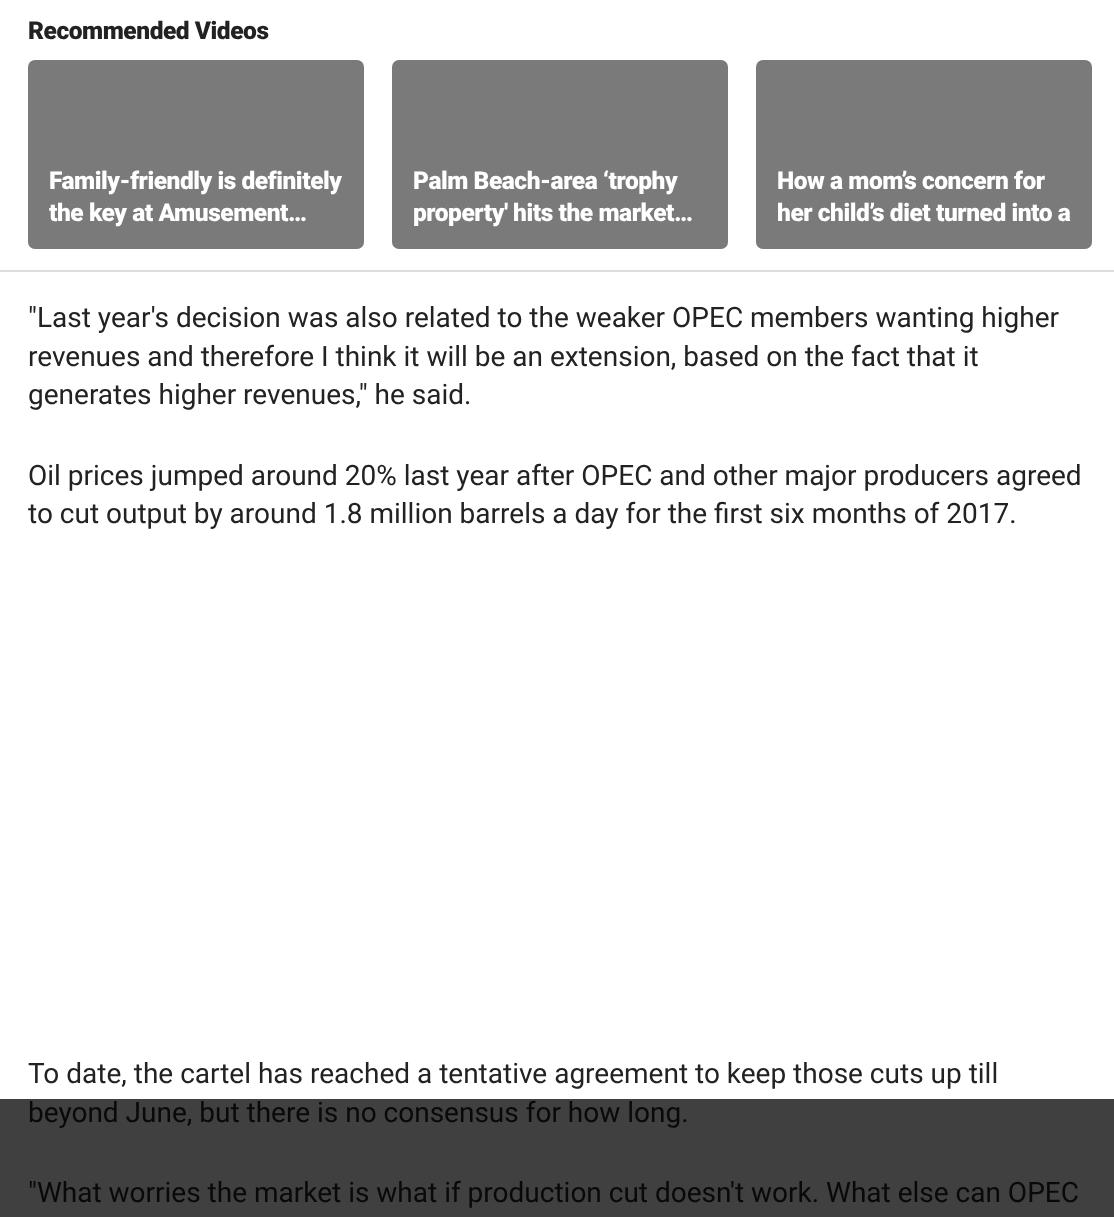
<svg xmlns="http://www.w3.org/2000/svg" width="1114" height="1217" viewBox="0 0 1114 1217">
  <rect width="100%" height="100%" fill="#fff"/>
  <path d="M0 1099h1114v118H0z" fill="#404040"/>
  <path d="M0 270h1114v2H0z" fill="#ddd"/>
  <rect x="28" y="60" width="336" height="189" rx="7" fill="#f4f4f4"/>
  <rect x="28" y="60" width="336" height="189" rx="7" fill="#00000080"/>
  <rect x="392" y="60" width="336" height="189" rx="7" fill="#f4f4f4"/>
  <rect x="392" y="60" width="336" height="189" rx="7" fill="#00000080"/>
  <rect x="756" y="60" width="336" height="189" rx="7" fill="#f4f4f4"/>
  <rect x="756" y="60" width="336" height="189" rx="7" fill="#00000080"/>
  <text x="28" y="39" font-family="Roboto" font-size="24.5" font-weight="900" letter-spacing="-0.45" fill="#222">Recommended Videos</text>
  <g font-family="Roboto" font-size="24.5" font-weight="900" letter-spacing="-0.45" fill="#fff">
    <text x="49" y="189">Family-friendly is definitely</text>
    <text x="49" y="221">the key at Amusement…</text>
    <text x="413" y="189">Palm Beach-area ‘trophy</text>
    <text x="413" y="221">property' hits the market…</text>
    <text x="777" y="189">How a mom’s concern for</text>
    <text x="777" y="221">her child’s diet turned into a</text>
  </g>
  <g font-family="Roboto" font-size="28" fill="#222">
    <text x="28" y="327">"Last year's decision was also related to the weaker OPEC members wanting higher</text>
    <text x="28" y="366">revenues and therefore I think it will be an extension, based on the fact that it</text>
    <text x="28" y="404">generates higher revenues," he said.</text>
    <text x="28" y="485">Oil prices jumped around 20% last year after OPEC and other major producers agreed</text>
    <text x="28" y="523">to cut output by around 1.8 million barrels a day for the first six months of 2017.</text>
    <text x="28" y="1083">To date, the cartel has reached a tentative agreement to keep those cuts up till</text>
  </g>
  <g font-family="Roboto" font-size="28" fill="#090909">
    <text x="28" y="1122">beyond June, but there is no consensus for how long.</text>
    <text x="28" y="1202">"What worries the market is what if production cut doesn't work. What else can OPEC</text>
  </g>
</svg>
